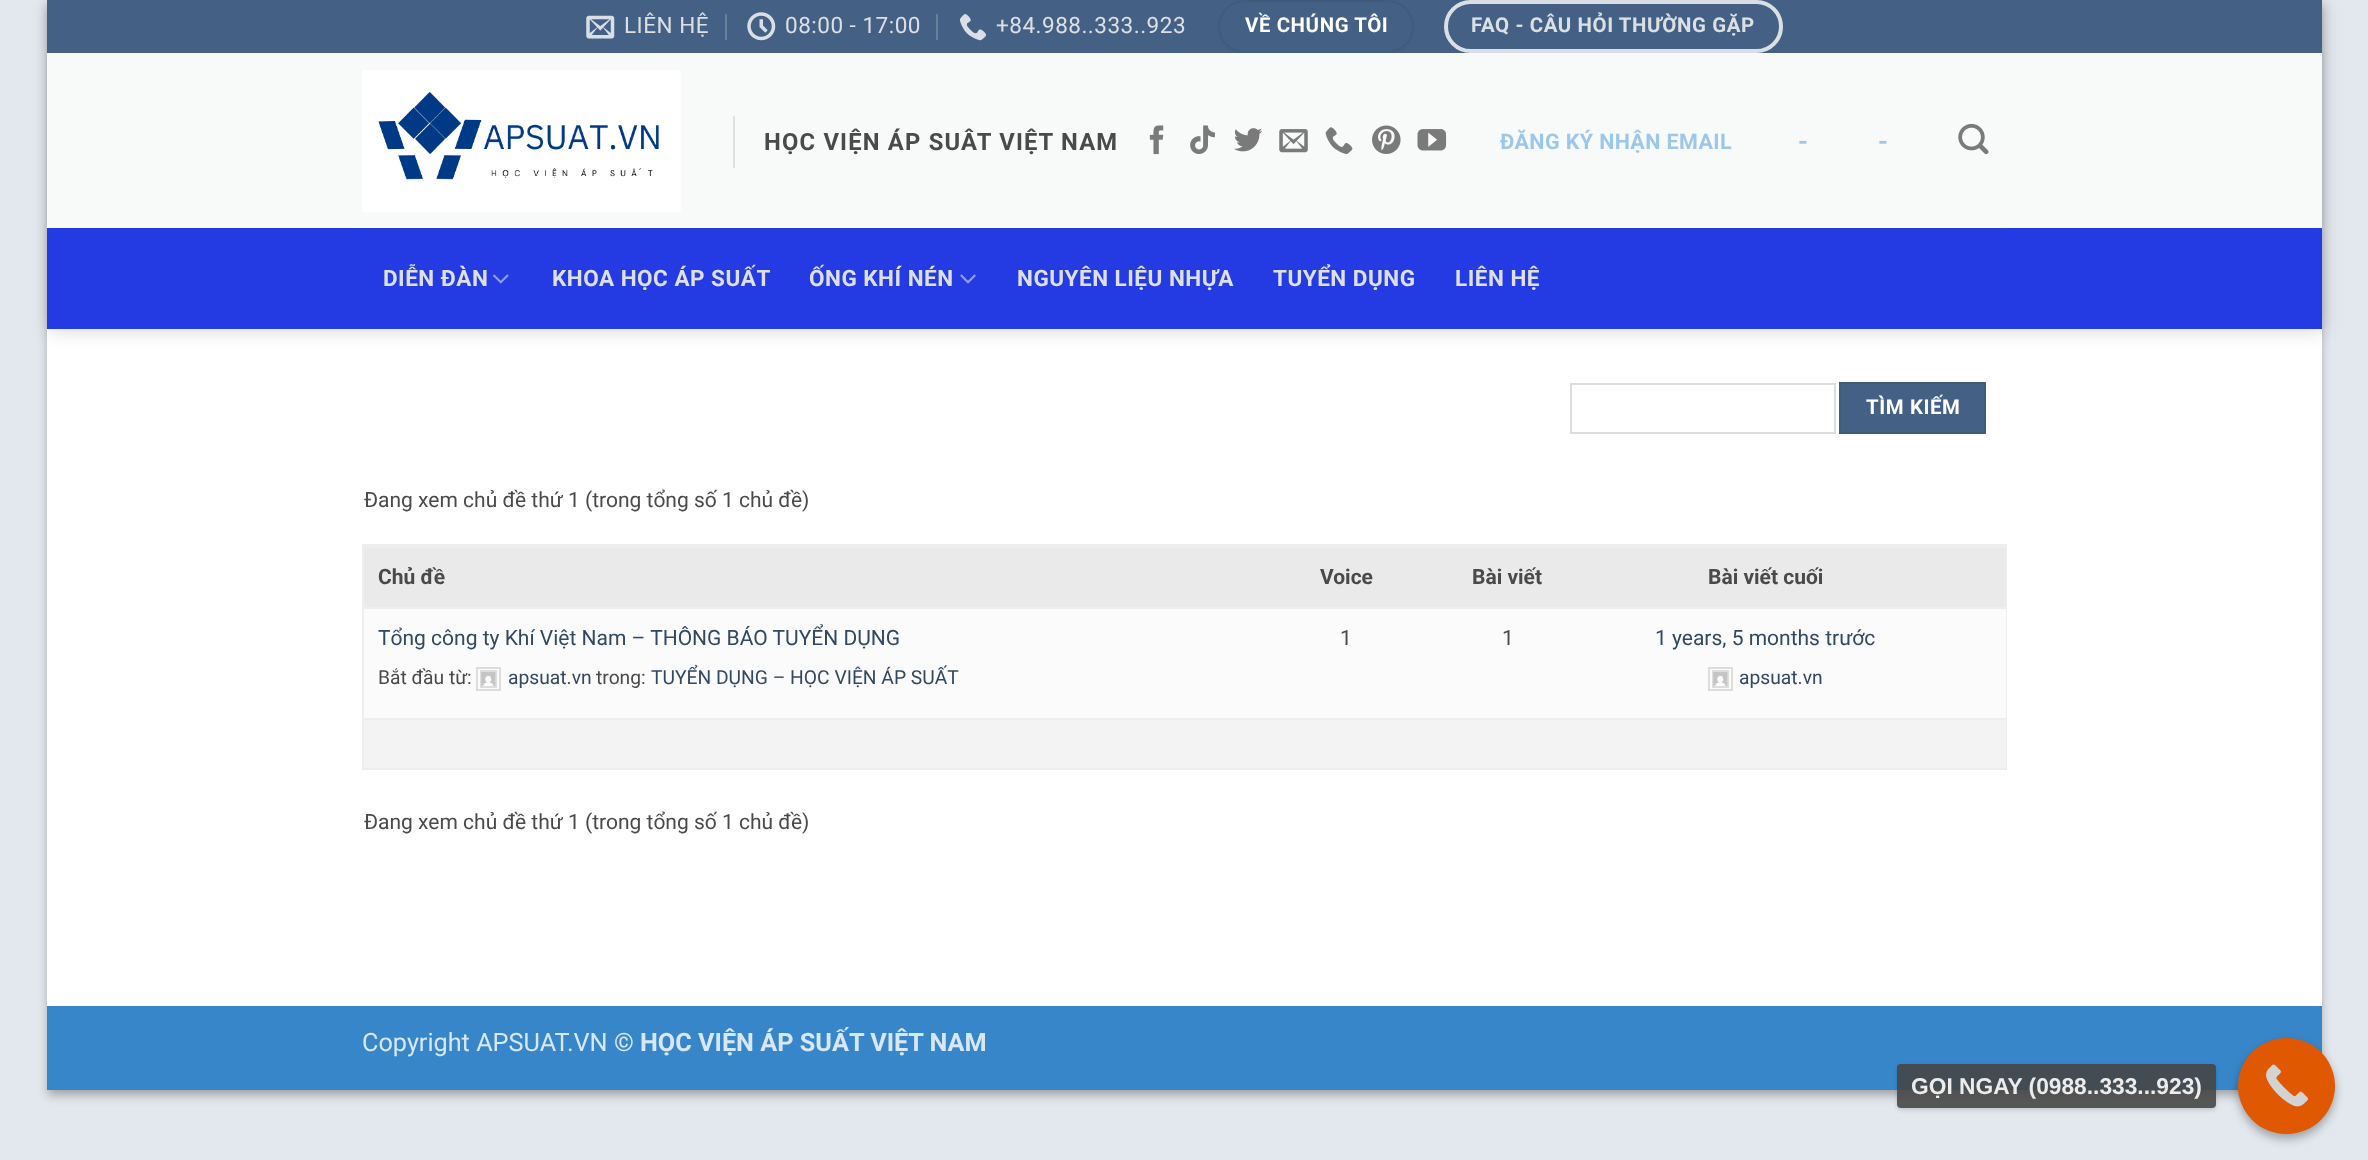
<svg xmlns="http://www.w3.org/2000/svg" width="2368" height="1160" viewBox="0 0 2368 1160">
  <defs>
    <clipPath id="clip1"><path d="M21 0H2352V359H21ZM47 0H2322V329H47Z" clip-rule="evenodd"/></clipPath>
    <clipPath id="clip2"><path d="M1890 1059H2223V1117H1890ZM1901 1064H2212C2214 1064 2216 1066 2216 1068V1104C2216 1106 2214 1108 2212 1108H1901C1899 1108 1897 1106 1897 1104V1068C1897 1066 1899 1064 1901 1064Z" clip-rule="evenodd"/></clipPath>
  </defs>
  <rect width="100%" height="100%" fill="#e2e8ee"/>
  <path d="M47 5h2275v1091H47z" fill="#0000003b" filter="blur(5px)"/>
  <path d="M54 12h2261v1077H54z" fill="#00000029" filter="blur(5px)"/>
  <path d="M47 53h2275v953H47z" fill="#fff"/>
  <g clip-path="url(#clip1)">
    <path d="M49 2h2275v329H49z" fill="#00000026" filter="blur(9px)"/>
  </g>
  <path d="M47 0h2275v53H47z" fill="#446084"/>
  <image x="586" y="15" width="29" height="24" href="img/1.png"/>
  <path d="M725 14h2v26H725z" fill="#69809d"/>
  <image x="747" y="12" width="29" height="29" href="img/2.png"/>
  <path d="M936 14h2v26H936z" fill="#69809d"/>
  <image x="959" y="14" width="28" height="27" href="img/3.png"/>
  <rect x="1219" y="1" width="194" height="51" rx="25.5" fill="none" stroke="#415b7d" stroke-width="2"/>
  <rect x="1446" y="2" width="335" height="49" rx="24.5" fill="none" stroke="#dadfe6" stroke-width="4"/>
  <path d="M47 53h2275v175H47z" fill="#b3b9bf17"/>
  <image x="362" y="70" width="319" height="142" href="img/4.png"/>
  <path d="M733 116h2v52H733z" fill="#dfe0e0"/>
  <image x="1149" y="125" width="15" height="30" href="img/5.png"/>
  <image x="1190" y="125" width="25" height="29" href="img/6.png"/>
  <image x="1234" y="128" width="28" height="24" href="img/7.png"/>
  <image x="1279" y="129" width="29" height="24" href="img/8.png"/>
  <image x="1325" y="127" width="28" height="27" href="img/9.png"/>
  <image x="1372" y="125" width="29" height="29" href="img/10.png"/>
  <image x="1417" y="129" width="30" height="22" href="img/11.png"/>
  <image x="1958" y="123" width="31" height="32" href="img/12.png"/>
  <path d="M47 228h2275v101H47z" fill="#243ae2"/>
  <path d="M362 228h1645v2H362z" fill="#283cd3"/>
  <image x="493" y="274" width="16" height="10" href="img/13.png"/>
  <image x="960" y="274" width="16" height="10" href="img/14.png"/>
  <path d="M1571 384h264v49H1571z" fill="none" stroke="#ddd" stroke-width="2"/>
  <path d="M1840 383h145v50H1840z" fill="#446084" stroke="#415b7d" stroke-width="2"/>
  <path d="M363 545h1643v224H363z" fill="none" stroke="#eee" stroke-width="2"/>
  <path d="M364 548h1642v59H364z" fill="#eaeaea"/>
  <path d="M364 546h1642v2H364z" fill="#eee"/>
  <path d="M364 609h1642v109H364z" fill="#fbfbfb"/>
  <path d="M364 607h1642v2H364z" fill="#eee"/>
  <path d="M477 668h23v22H477z" fill="none" stroke="#ddd" stroke-width="2"/>
  <path d="M481 671h15v16H481z" fill="none" stroke="#ddd" stroke-width="2"/>
  <image x="481" y="672" width="15" height="14" href="img/15.png"/>
  <path d="M1709 668h23v22H1709z" fill="none" stroke="#ddd" stroke-width="2"/>
  <path d="M1713 671h15v16H1713z" fill="none" stroke="#ddd" stroke-width="2"/>
  <image x="1713" y="672" width="15" height="14" href="img/15.png"/>
  <path d="M364 720h1642v48H364z" fill="#f3f3f3"/>
  <path d="M364 718h1642v2H364z" fill="#eee"/>
  <path d="M47 1006h2275v84H47z" fill="#3886ca"/>
  <rect x="2238" y="1043" width="97" height="96" rx="48" fill="#0000004d" filter="blur(5px)"/>
  <rect x="2238" y="1038" width="97" height="96" rx="48" fill="#e05900"/>
  <image x="2266" y="1064" width="42" height="43" href="img/16.png"/>
  <g clip-path="url(#clip2)">
    <rect x="1897" y="1066" width="319" height="44" rx="4" fill="#00000026" filter="blur(2px)"/>
  </g>
  <rect x="1897" y="1064" width="319" height="44" rx="4" fill="#464646e6"/>
  <g font-family="Roboto" font-size="22.5" letter-spacing="0.5" fill="#dce0e4">
    <text x="624" y="33">LIÊN HỆ</text>
    <text x="785" y="33">08:00 - 17:00</text>
    <text x="996" y="33">+84.988..333..923</text>
  </g>
  <text x="1245" y="32" font-family="Roboto" font-size="20.4" font-weight="bold" letter-spacing="0.6" fill="#fff">VỀ CHÚNG TÔI</text>
  <text x="1471" y="32" font-family="Roboto" font-size="20.4" font-weight="bold" letter-spacing="0.6" fill="#dce0e4">FAQ - CÂU HỎI THƯỜNG GẶP</text>
  <text x="764" y="150" font-family="Roboto" font-size="23.75" font-weight="bold" letter-spacing="1.2" fill="#4a4a4a">HỌC VIỆN ÁP SUÂT VIỆT NAM</text>
  <text x="1500" y="149" font-family="Roboto" font-size="21.5" font-weight="bold" letter-spacing="0.4" fill="#9cc7ec">ĐĂNG KÝ NHẬN EMAIL</text>
  <g font-family="Roboto" font-size="25.25" font-weight="bold" fill="#9cc7ec">
    <text x="1798" y="150">-</text>
    <text x="1878" y="150">-</text>
  </g>
  <g font-family="Roboto" font-size="22.5" font-weight="bold" letter-spacing="0.5" fill="#dce0e4">
    <text x="383" y="286">DIỄN ĐÀN</text>
    <text x="552" y="286">KHOA HỌC ÁP SUẤT</text>
    <text x="809" y="286">ỐNG KHÍ NÉN</text>
    <text x="1017" y="286">NGUYÊN LIỆU NHỰA</text>
    <text x="1273" y="286">TUYỂN DỤNG</text>
    <text x="1455" y="286">LIÊN HỆ</text>
  </g>
  <text x="1866" y="414" font-family="Roboto" font-size="20.4" font-weight="bold" letter-spacing="0.6" fill="#fff">TÌM KIẾM</text>
  <text x="364" y="507" font-family="Roboto" font-size="21" fill="#4a4a4a">Đang xem chủ đề thứ 1 (trong tổng số 1 chủ đề)</text>
  <g font-family="Roboto" font-size="21" font-weight="bold" fill="#4a4a4a">
    <text x="378" y="584">Chủ đề</text>
    <text x="1320" y="584">Voice</text>
    <text x="1472" y="584">Bài viết</text>
    <text x="1708" y="584">Bài viết cuối</text>
  </g>
  <text x="378" y="645" font-family="Roboto" font-size="21" fill="#334862">Tổng công ty Khí Việt Nam – THÔNG BÁO TUYỂN DỤNG</text>
  <text x="378" y="684" font-family="Roboto" font-size="19.25" fill="#4a4a4a">Bắt đầu từ:</text>
  <text x="508" y="684" font-family="Roboto" font-size="19.25" fill="#334862">apsuat.vn</text>
  <text x="596" y="684" font-family="Roboto" font-size="19.25" fill="#4a4a4a">trong:</text>
  <text x="651" y="684" font-family="Roboto" font-size="19.25" fill="#334862">TUYỂN DỤNG – HỌC VIỆN ÁP SUẤT</text>
  <g font-family="Roboto" font-size="21" fill="#4a4a4a">
    <text x="1340" y="645">1</text>
    <text x="1502" y="645">1</text>
  </g>
  <text x="1655" y="645" font-family="Roboto" font-size="21" fill="#334862">1 years, 5 months trước</text>
  <text x="1739" y="684" font-family="Roboto" font-size="19.25" fill="#334862">apsuat.vn</text>
  <text x="364" y="829" font-family="Roboto" font-size="21" fill="#4a4a4a">Đang xem chủ đề thứ 1 (trong tổng số 1 chủ đề)</text>
  <text x="362" y="1051" font-family="Roboto" font-size="25.25" fill="#d7e7f4">Copyright APSUAT.VN ©</text>
  <text x="640" y="1051" font-family="Roboto" font-size="25.25" font-weight="bold" fill="#d7e7f4">HỌC VIỆN ÁP SUẤT VIỆT NAM</text>
  <text x="1911" y="1094" font-family="Liberation Sans" font-size="22.75" font-weight="bold" fill="#ececec">GỌI NGAY (0988..333...923)</text>
</svg>
